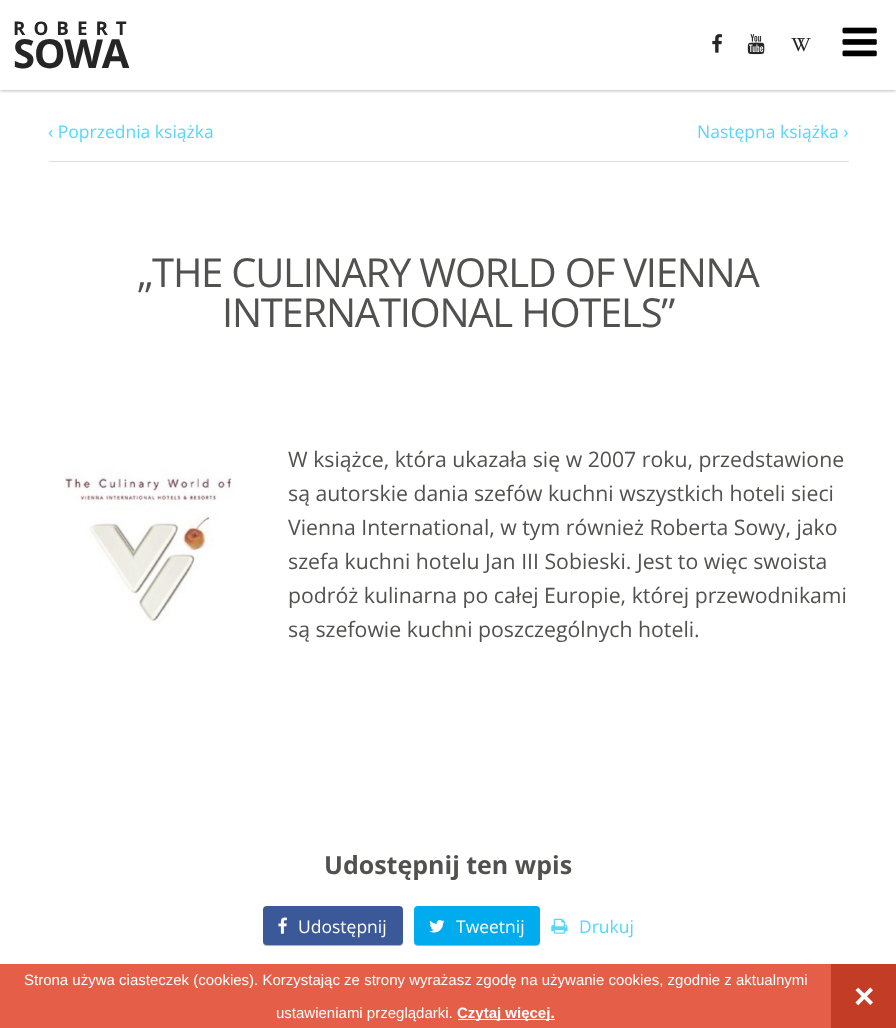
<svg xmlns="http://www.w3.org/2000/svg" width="896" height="1028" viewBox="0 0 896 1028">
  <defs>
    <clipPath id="clip1"><path d="M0 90h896v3H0z"/></clipPath>
  </defs>
  <rect width="100%" height="100%" fill="#fff"/>
  <g clip-path="url(#clip1)">
    <path d="M0 0h896v90H0z" fill="#00000066" filter="blur(2px)"/>
  </g>
  <image x="712" y="34" width="10" height="19" href="img/1.png"/>
  <image x="747" y="34" width="18" height="21" href="img/2.png"/>
  <image x="842" y="27" width="35" height="30" href="img/3.png"/>
  <path d="M49 161h800v1H49z" fill="#ddd"/>
  <image x="64" y="468" width="169" height="156" href="img/4.png"/>
  <rect x="263" y="908" width="140" height="38" rx="4" fill="#0000004d" filter="blur(0.5px)"/>
  <rect x="263" y="906" width="140" height="39" rx="4" fill="#3b5998"/>
  <image x="278" y="917" width="9" height="17" href="img/5.png"/>
  <rect x="414" y="908" width="126" height="38" rx="4" fill="#0000004d" filter="blur(0.5px)"/>
  <rect x="414" y="906" width="126" height="39" rx="4" fill="#00aced"/>
  <image x="429" y="920" width="16" height="13" href="img/6.png"/>
  <image x="551" y="918" width="17" height="16" href="img/7.png"/>
  <path d="M0 964h831v64H0z" fill="#e55e48"/>
  <path d="M458 1019h97v1H458z" fill="#fff"/>
  <path d="M831 964h65v64H831z" fill="#c33c26"/>
  <text x="13" y="35" font-family="Open Sans" font-size="18.75" font-weight="bold" letter-spacing="8" fill="#262526">ROBERT</text>
  <text x="13" y="68" font-family="Open Sans" font-size="40" font-weight="bold" letter-spacing="-1.25" fill="#262526">SOWA</text>
  <text x="791" y="51" font-family="Liberation Serif" font-size="20" letter-spacing="-9" fill="#262526">VV</text>
  <g font-family="Open Sans" font-size="17.5" fill="#53d8fb">
    <text x="48" y="138">‹ Poprzednia książka</text>
    <text x="697" y="138">Następna książka ›</text>
  </g>
  <g font-family="Open Sans" font-size="40" letter-spacing="-1.25" fill="#515150">
    <text x="137" y="287">„THE CULINARY WORLD OF VIENNA</text>
    <text x="222" y="327">INTERNATIONAL HOTELS”</text>
  </g>
  <g font-family="Open Sans" font-size="21.25" fill="#515150">
    <text x="288" y="467">W książce, która ukazała się w 2007 roku, przedstawione</text>
    <text x="288" y="501">są autorskie dania szefów kuchni wszystkich hoteli sieci</text>
    <text x="288" y="535">Vienna International, w tym również Roberta Sowy, jako</text>
    <text x="288" y="569">szefa kuchni hotelu Jan III Sobieski. Jest to więc swoista</text>
    <text x="288" y="603">podróż kulinarna po całej Europie, której przewodnikami</text>
    <text x="288" y="637">są szefowie kuchni poszczególnych hoteli.</text>
  </g>
  <text x="324" y="874" font-family="Open Sans" font-size="25" font-weight="bold" fill="#515150">Udostępnij ten wpis</text>
  <g font-family="Open Sans" font-size="17.5" fill="#fff">
    <text x="298" y="933">Udostępnij</text>
    <text x="456" y="933">Tweetnij</text>
  </g>
  <text x="579" y="933" font-family="Open Sans" font-size="17.5" fill="#53d8fb">Drukuj</text>
  <g font-family="Liberation Sans" font-size="15" fill="#fff">
    <text x="24" y="985">Strona używa ciasteczek (cookies). Korzystając ze strony wyrażasz zgodę na używanie cookies, zgodnie z aktualnymi</text>
    <text x="276" y="1018">ustawieniami przeglądarki.</text>
  </g>
  <text x="457" y="1018" font-family="Liberation Sans" font-size="15" font-weight="bold" fill="#fff">Czytaj więcej.</text>
  <text x="854" y="1008" font-family="Liberation Sans" font-size="35" font-weight="bold" fill="#fff">×</text>
</svg>
